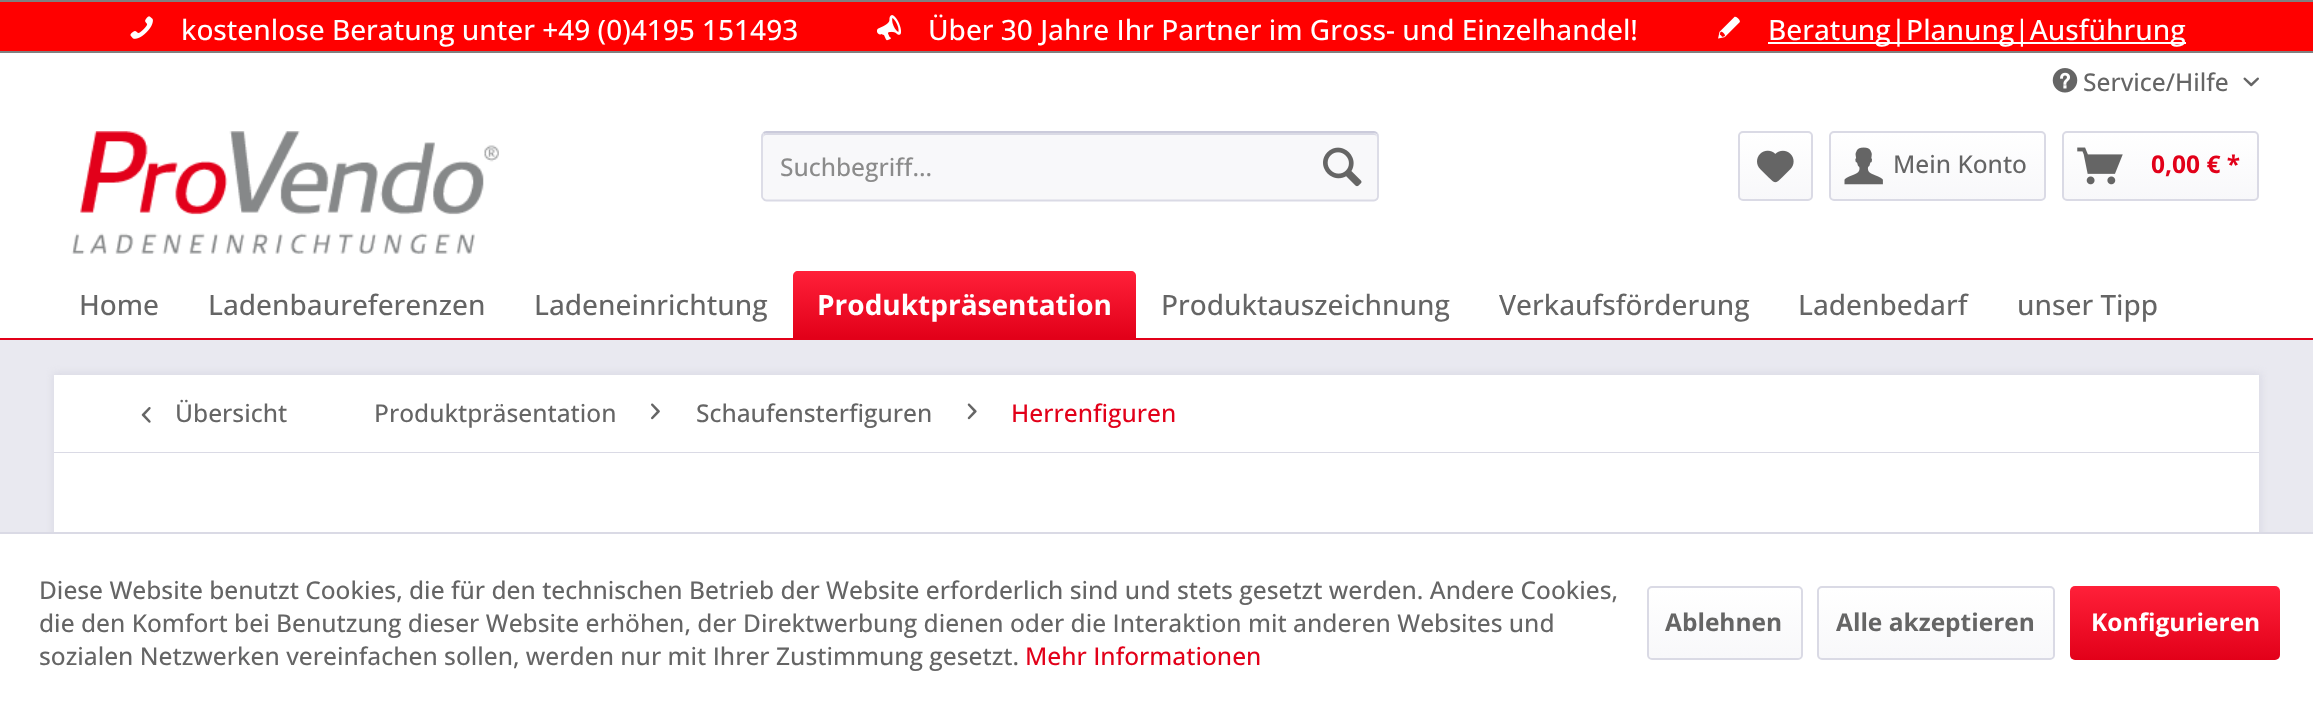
<svg xmlns="http://www.w3.org/2000/svg" width="2313" height="710" viewBox="0 0 2313 710">
  <defs>
    <linearGradient id="g1" gradientUnits="userSpaceOnUse" x1="1775" y1="133" x2="1775" y2="200"><stop offset="0" stop-color="#fff"/><stop offset="1" stop-color="#f8f8fa"/></linearGradient>
    <linearGradient id="g2" gradientUnits="userSpaceOnUse" x1="1937" y1="133" x2="1937" y2="200"><stop offset="0" stop-color="#fff"/><stop offset="1" stop-color="#f8f8fa"/></linearGradient>
    <linearGradient id="g3" gradientUnits="userSpaceOnUse" x1="2160" y1="133" x2="2160" y2="200"><stop offset="0" stop-color="#fff"/><stop offset="1" stop-color="#f8f8fa"/></linearGradient>
    <linearGradient id="g4" gradientUnits="userSpaceOnUse" x1="964" y1="271" x2="964" y2="338"><stop offset="0" stop-color="#ff2039"/><stop offset="1" stop-color="#e20019"/></linearGradient>
    <linearGradient id="g5" gradientUnits="userSpaceOnUse" x1="1725" y1="588" x2="1725" y2="658"><stop offset="0" stop-color="#fff"/><stop offset="1" stop-color="#f8f8fa"/></linearGradient>
    <linearGradient id="g6" gradientUnits="userSpaceOnUse" x1="1936" y1="588" x2="1936" y2="658"><stop offset="0" stop-color="#fff"/><stop offset="1" stop-color="#f8f8fa"/></linearGradient>
    <linearGradient id="g7" gradientUnits="userSpaceOnUse" x1="2175" y1="586" x2="2175" y2="660"><stop offset="0" stop-color="#ff2039"/><stop offset="1" stop-color="#e20019"/></linearGradient>
  </defs>
  <rect width="100%" height="100%" fill="#e9e9f0"/>
  <path d="M0 2h2313v49H0z" fill="#f00"/>
  <path d="M0 0h2313v2H0z" fill="#808080"/>
  <path d="M0 51h2313v2H0z" fill="#808080"/>
  <image x="130" y="16" width="23" height="23" href="img/1.png"/>
  <image x="877" y="15" width="24" height="26" href="img/2.png"/>
  <image x="1718" y="16" width="22" height="23" href="img/3.png"/>
  <path d="M1768 42h418v2H1768z" fill="#fff"/>
  <path d="M0 53h2313v285H0z" fill="#fff"/>
  <image x="2052" y="68" width="26" height="25" href="img/4.png"/>
  <image x="2243" y="77" width="16" height="10" href="img/5.png"/>
  <image x="71" y="131" width="428" height="123" href="img/6.png"/>
  <rect x="761" y="131" width="618" height="70" rx="5" fill="#f8f8fa"/>
  <path d="M766 135H1374C1376 135 1377 136 1377 138V137C1377 135 1375 133 1373 133H767C765 133 763 135 763 137V138C763 136 765 135 766 135Z" fill="#dadae5"/>
  <path d="M763.5 133.5C764 132.5 765.5 132 766.5 132H1374C1375 132 1376 132.5 1377 133.5" fill="none" stroke="#cbcbdb" stroke-width="1.8"/>
  <path d="M1377 133.5C1377.5 134 1378 135.5 1378 136.5V196C1378 197 1377.5 198.5 1377 199C1376 200 1375 200.5 1374 200.5H766.5C765.5 200.5 764 200 763.5 199C762.5 198.5 762 197 762 196V136.5C762 135.5 762.5 134 763.5 133.5" fill="none" stroke="#dadae5" stroke-width="1.8"/>
  <image x="1323" y="147" width="39" height="40" href="img/7.png"/>
  <rect x="1740" y="133" width="71" height="67" rx="4" fill="url(#g1)"/>
  <rect x="1739" y="132" width="73" height="68" rx="4" fill="none" stroke="#dadae5" stroke-width="2"/>
  <image x="1757" y="150" width="37" height="33" href="img/8.png"/>
  <rect x="1831" y="133" width="213" height="67" rx="4" fill="url(#g2)"/>
  <rect x="1830" y="132" width="215" height="68" rx="4" fill="none" stroke="#dadae5" stroke-width="2"/>
  <image x="1844" y="147" width="39" height="38" href="img/9.png"/>
  <rect x="2063" y="133" width="195" height="67" rx="4" fill="url(#g3)"/>
  <rect x="2063" y="132" width="195" height="68" rx="4" fill="none" stroke="#dadae5" stroke-width="2"/>
  <image x="2077" y="147" width="46" height="38" href="img/10.png"/>
  <path d="M0 338h2313v2H0z" fill="#e20019"/>
  <path d="M798 271H1131C1134 271 1136 273 1136 276V338H793V276C793 273 795 271 798 271Z" fill="url(#g4)"/>
  <path d="M53 373h2208v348H53z" fill="#dadae5" filter="blur(3.5px)"/>
  <path d="M54 375h2205v77H54z" fill="#fff"/>
  <path d="M54 452h2205v1H54z" fill="#dadae5"/>
  <image x="141" y="407" width="10" height="16" href="img/11.png"/>
  <image x="651" y="403" width="9" height="17" href="img/12.png"/>
  <image x="967" y="403" width="10" height="17" href="img/13.png"/>
  <path d="M54 453h2205v79H54z" fill="#fff"/>
  <path d="M0 534h2313v176H0z" fill="#fff"/>
  <path d="M0 532h2313v2H0z" fill="#dadae5"/>
  <rect x="1649" y="588" width="152" height="70" rx="4" fill="url(#g5)"/>
  <rect x="1648" y="587" width="154" height="72" rx="4" fill="none" stroke="#dadae5" stroke-width="2"/>
  <rect x="1818" y="588" width="235" height="70" rx="4" fill="url(#g6)"/>
  <rect x="1818" y="587" width="236" height="72" rx="4" fill="none" stroke="#dadae5" stroke-width="2"/>
  <rect x="2070" y="586" width="210" height="74" rx="5" fill="url(#g7)"/>
  <g font-family="Open Sans" font-size="28" font-weight="500" fill="#fff">
    <text x="181" y="40">kostenlose Beratung unter +49 (0)4195 151493</text>
    <text x="928" y="40">Über 30 Jahre Ihr Partner im Gross- und Einzelhandel!</text>
    <text x="1768" y="40">Beratung|Planung|Ausführung</text>
  </g>
  <text x="2083" y="91" font-family="Open Sans" font-size="24.5" font-weight="500" fill="#656565">Service/Hilfe</text>
  <text x="780" y="176" font-family="Open Sans" font-size="24.5" font-weight="500" fill="#8b8b8b">Suchbegriff...</text>
  <text x="1893" y="173" font-family="Open Sans" font-size="24.5" font-weight="500" fill="#656565">Mein Konto</text>
  <text x="2151" y="173" font-family="Open Sans" font-size="24.5" font-weight="bold" fill="#e20019">0,00 € *</text>
  <g font-family="Open Sans" font-size="28" font-weight="500" fill="#656565">
    <text x="79" y="315">Home</text>
    <text x="208" y="315">Ladenbaureferenzen</text>
    <text x="534" y="315">Ladeneinrichtung</text>
  </g>
  <text x="817" y="315" font-family="Open Sans" font-size="28" font-weight="bold" fill="#fff">Produktpräsentation</text>
  <g font-family="Open Sans" font-size="28" font-weight="500" fill="#656565">
    <text x="1161" y="315">Produktauszeichnung</text>
    <text x="1499" y="315">Verkaufsförderung</text>
    <text x="1798" y="315">Ladenbedarf</text>
    <text x="2017" y="315">unser Tipp</text>
  </g>
  <g font-family="Open Sans" font-size="24.5" font-weight="500" fill="#656565">
    <text x="175" y="422">Übersicht</text>
    <text x="374" y="422">Produktpräsentation</text>
    <text x="696" y="422">Schaufensterfiguren</text>
  </g>
  <text x="1011" y="422" font-family="Open Sans" font-size="24.5" font-weight="500" fill="#e20019">Herrenfiguren</text>
  <g font-family="Open Sans" font-size="24.5" font-weight="500" fill="#656565">
    <text x="39" y="599">Diese Website benutzt Cookies, die für den technischen Betrieb der Website erforderlich sind und stets gesetzt werden. Andere Cookies,</text>
    <text x="39" y="632">die den Komfort bei Benutzung dieser Website erhöhen, der Direktwerbung dienen oder die Interaktion mit anderen Websites und</text>
    <text x="39" y="665">sozialen Netzwerken vereinfachen sollen, werden nur mit Ihrer Zustimmung gesetzt.</text>
  </g>
  <text x="1025" y="665" font-family="Open Sans" font-size="24.5" font-weight="500" fill="#e20019">Mehr Informationen</text>
  <g font-family="Open Sans" font-size="24.5" font-weight="bold" fill="#656565">
    <text x="1665" y="631">Ablehnen</text>
    <text x="1836" y="631">Alle akzeptieren</text>
  </g>
  <text x="2091" y="631" font-family="Open Sans" font-size="24.5" font-weight="bold" fill="#fff">Konfigurieren</text>
</svg>
